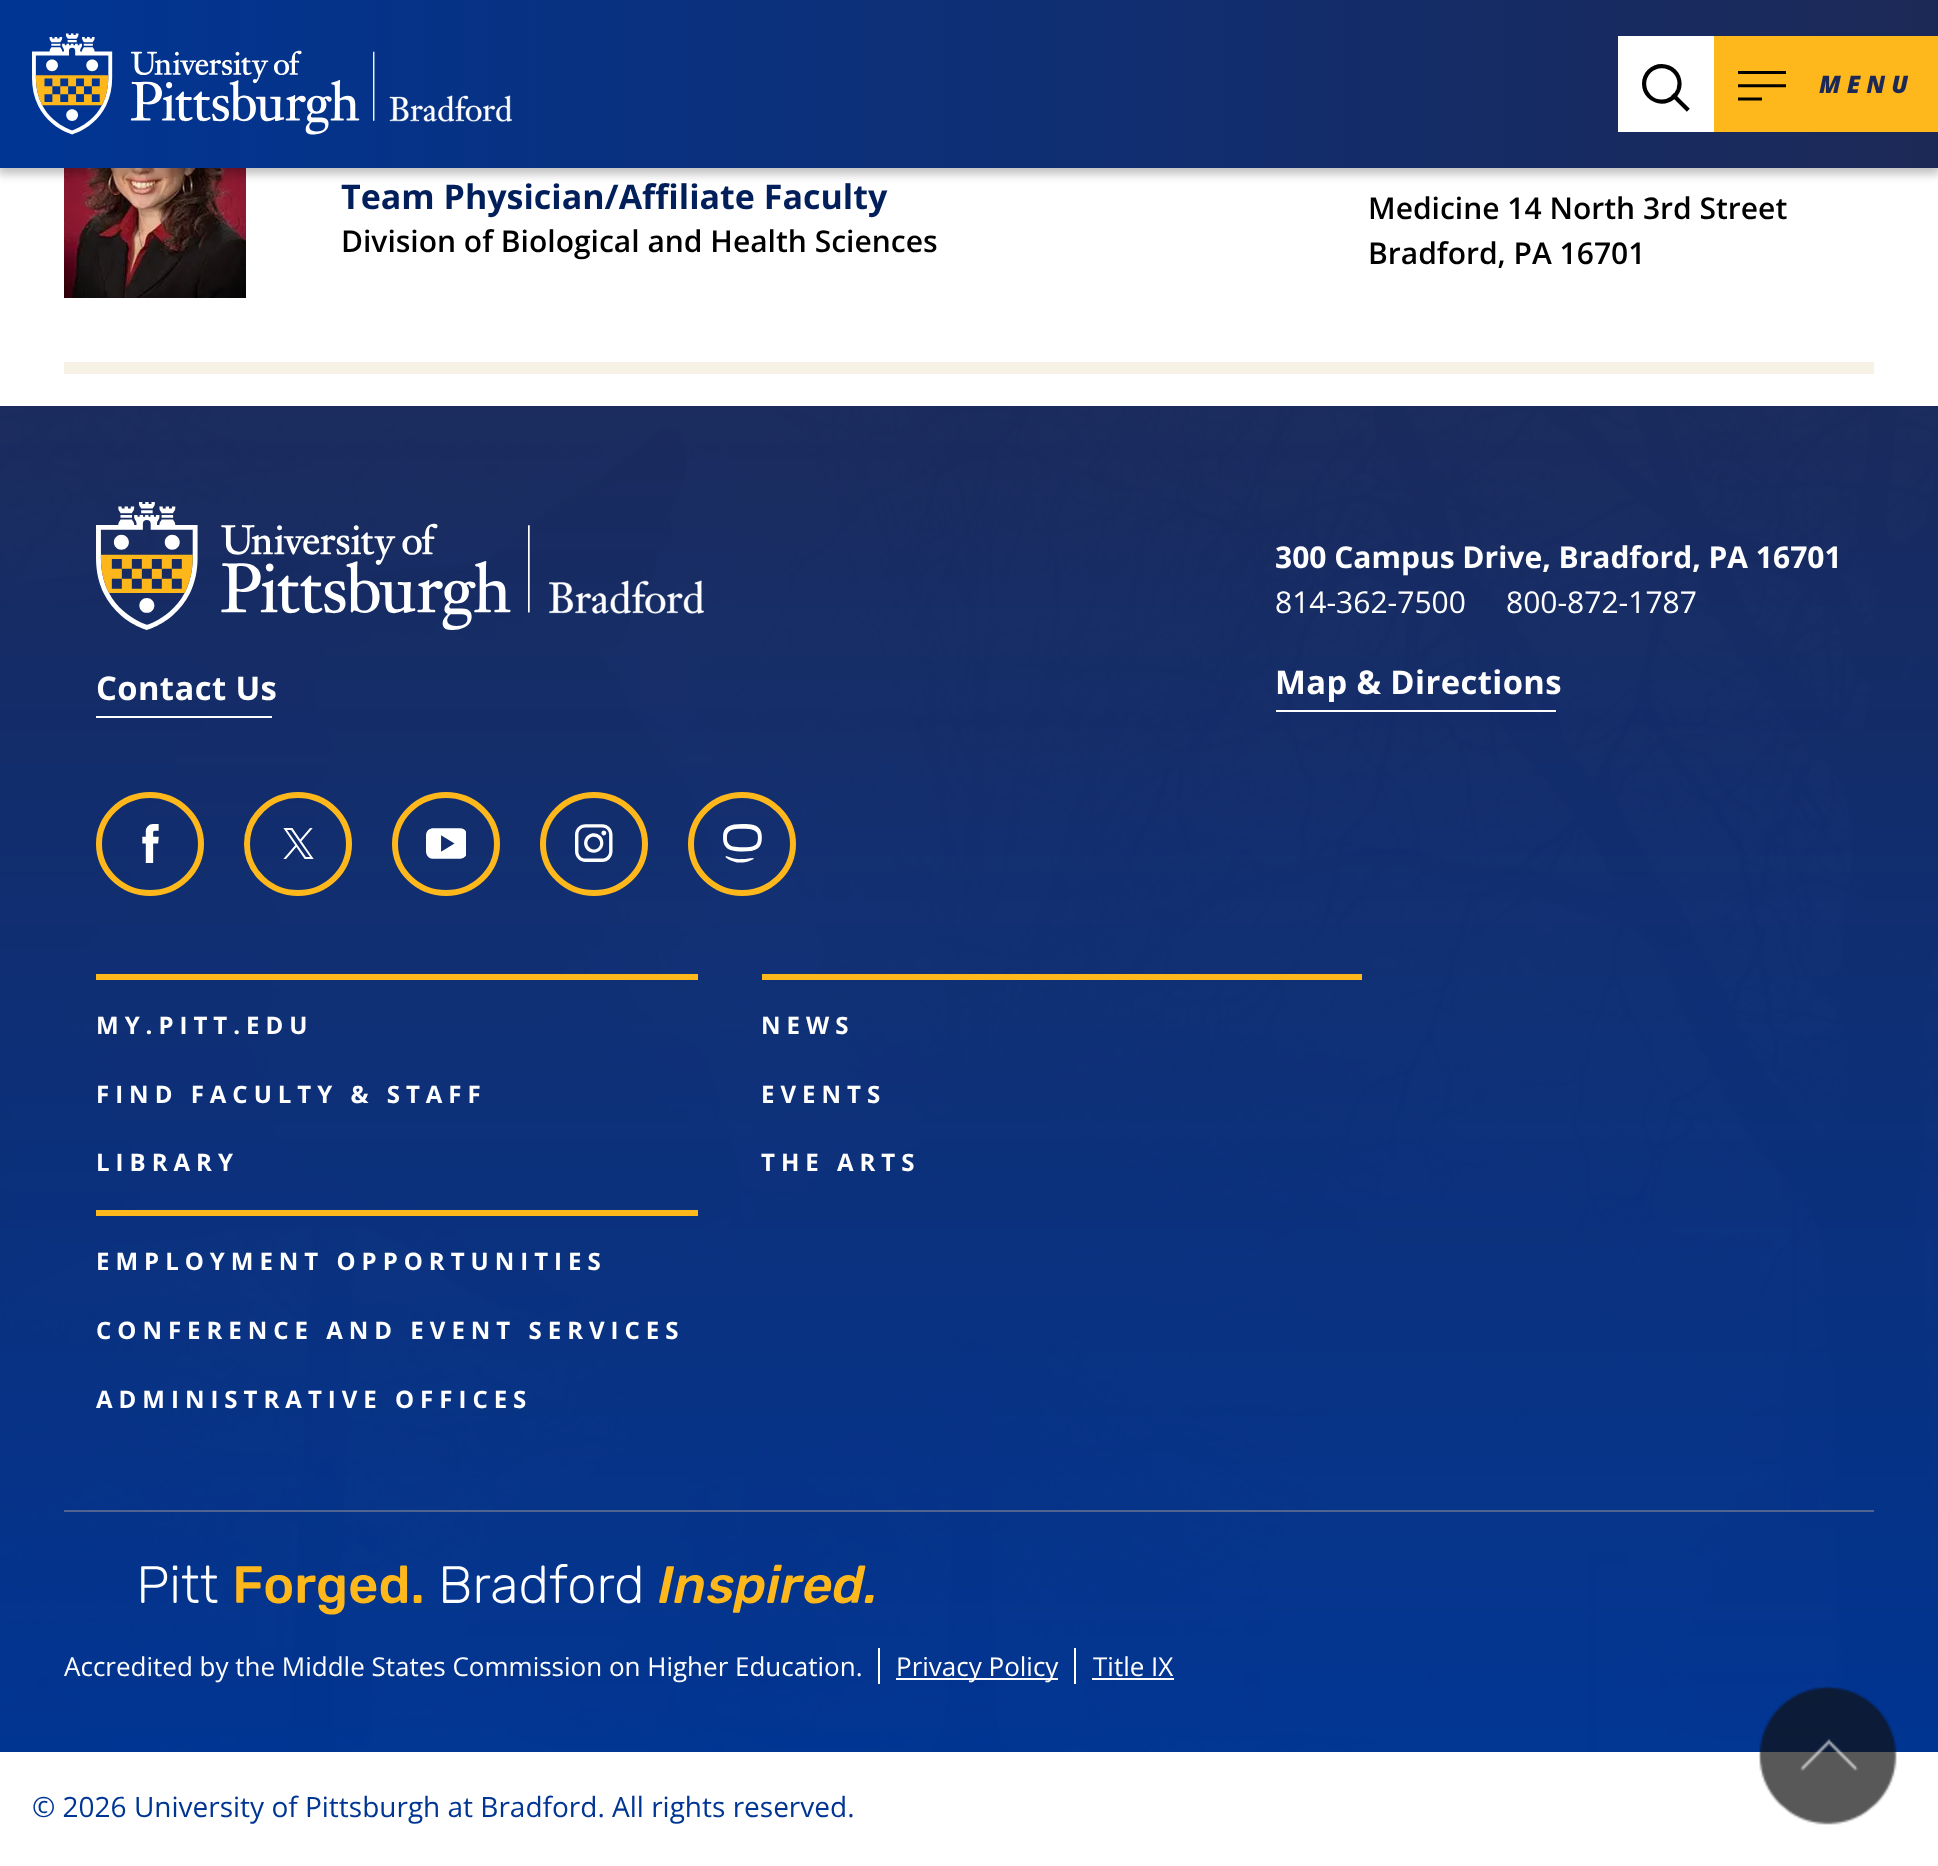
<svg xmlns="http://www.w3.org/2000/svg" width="1938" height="1866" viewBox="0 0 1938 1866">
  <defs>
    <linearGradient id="g1" gradientUnits="userSpaceOnUse" x1="0" y1="84" x2="1938" y2="84"><stop offset="0" stop-color="#003594"/><stop offset="1" stop-color="#1c2957"/></linearGradient>
  </defs>
  <rect width="100%" height="100%" fill="#fff"/>
  <image x="64" y="168" width="182" height="130" href="img/4.png"/>
  <path d="M-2 2h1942v172H-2z" fill="#00000040" filter="blur(5px)"/>
  <path d="M0 0h1938v168H0z" fill="url(#g1)"/>
  <image x="32" y="33" width="480" height="102" href="img/1.png"/>
  <path d="M1618 36h96v96H1618z" fill="#fff"/>
  <image x="1642" y="64" width="48" height="48" href="img/2.png"/>
  <path d="M1714 36h224v96H1714z" fill="#ffb81c"/>
  <image x="1738" y="71" width="48" height="30" href="img/3.png"/>
  <path d="M64 362h1810v12H64z" fill="#f7f2e5"/>
  <image x="0" y="406" width="1938" height="1346" href="img/5.png"/>
  <image x="96" y="502" width="608" height="128" href="img/6.png"/>
  <path d="M96 716h176v2H96z" fill="#fff"/>
  <path d="M1276 710h280v2H1276z" fill="#fff"/>
  <path d="M150 795C178 795 201 817 201 844C201 871 178 893 150 893C122 893 99 871 99 844C99 817 122 795 150 795Z" fill="none" stroke="#ffb81c" stroke-width="6"/>
  <image x="142" y="824" width="17" height="39" href="img/7.png"/>
  <path d="M298 795C326 795 349 817 349 844C349 871 326 893 298 893C270 893 247 871 247 844C247 817 270 795 298 795Z" fill="none" stroke="#ffb81c" stroke-width="6"/>
  <image x="283" y="828" width="31" height="31" href="img/8.png"/>
  <path d="M446 795C474 795 497 817 497 844C497 871 474 893 446 893C418 893 395 871 395 844C395 817 418 795 446 795Z" fill="none" stroke="#ffb81c" stroke-width="6"/>
  <image x="426" y="828" width="40" height="31" href="img/9.png"/>
  <path d="M594 795C622 795 645 817 645 844C645 871 622 893 594 893C566 893 543 871 543 844C543 817 566 795 594 795Z" fill="none" stroke="#ffb81c" stroke-width="6"/>
  <image x="575" y="824" width="38" height="38" href="img/10.png"/>
  <path d="M742 795C770 795 793 817 793 844C793 871 770 893 742 893C714 893 691 871 691 844C691 817 714 795 742 795Z" fill="none" stroke="#ffb81c" stroke-width="6"/>
  <image x="723" y="824" width="39" height="39" href="img/11.png"/>
  <path d="M96 974h602v6H96z" fill="#ffb81c"/>
  <path d="M762 974h600v6H762z" fill="#ffb81c"/>
  <path d="M96 1210h602v6H96z" fill="#ffb81c"/>
  <path d="M64 1510h1810v2H64z" fill="#4f6590"/>
  <image x="141" y="1564" width="733" height="51" href="img/12.png"/>
  <path d="M878 1648h2v36H878z" fill="#fff"/>
  <path d="M1074 1648h2v36H1074z" fill="#fff"/>
  <path d="M896 1678h162v2H896z" fill="#fff"/>
  <path d="M1092 1678h82v2H1092z" fill="#fff"/>
  <image x="1758" y="1686" width="139" height="139" href="img/13.png"/>
  <text x="1819" y="93" font-family="Open Sans" font-size="24" font-weight="800" font-style="italic" letter-spacing="6" fill="#1c2957">MENU</text>
  <text x="341" y="209" font-family="Open Sans" font-size="34" font-weight="bold" fill="#001f5b">Team Physician/Affiliate Faculty</text>
  <g font-family="Open Sans" font-size="30" font-weight="600" fill="#000">
    <text x="341" y="252">Division of Biological and Health Sciences</text>
    <text x="1368" y="219">Medicine 14 North 3rd Street</text>
    <text x="1368" y="264">Bradford, PA 16701</text>
  </g>
  <text x="96" y="700" font-family="Open Sans" font-size="32.75" font-weight="bold" letter-spacing="0.4" fill="#fff">Contact Us</text>
  <text x="1275" y="568" font-family="Open Sans" font-size="30" font-weight="bold" fill="#fff">300 Campus Drive, Bradford, PA 16701</text>
  <g font-family="Open Sans" font-size="30" fill="#fff">
    <text x="1275" y="613">814-362-7500</text>
    <text x="1506" y="613">800-872-1787</text>
  </g>
  <text x="1275" y="694" font-family="Open Sans" font-size="32.75" font-weight="bold" letter-spacing="0.4" fill="#fff">Map &amp; Directions</text>
  <g font-family="Open Sans" font-size="24" font-weight="bold" letter-spacing="6" fill="#fff">
    <text x="96" y="1034">MY.PITT.EDU</text>
    <text x="96" y="1103">FIND FACULTY &amp; STAFF</text>
    <text x="96" y="1171">LIBRARY</text>
    <text x="761" y="1034">NEWS</text>
    <text x="761" y="1103">EVENTS</text>
    <text x="761" y="1171">THE ARTS</text>
    <text x="96" y="1270">EMPLOYMENT OPPORTUNITIES</text>
    <text x="96" y="1339">CONFERENCE AND EVENT SERVICES</text>
    <text x="96" y="1408">ADMINISTRATIVE OFFICES</text>
  </g>
  <g font-family="Open Sans" font-size="26" fill="#fff">
    <text x="64" y="1676">Accredited by the Middle States Commission on Higher Education.</text>
    <text x="896" y="1676">Privacy Policy</text>
    <text x="1093" y="1676">Title IX</text>
  </g>
  <text x="32" y="1817" font-family="Open Sans" font-size="28" fill="#003594">© 2026 University of Pittsburgh at Bradford. All rights reserved.</text>
</svg>
